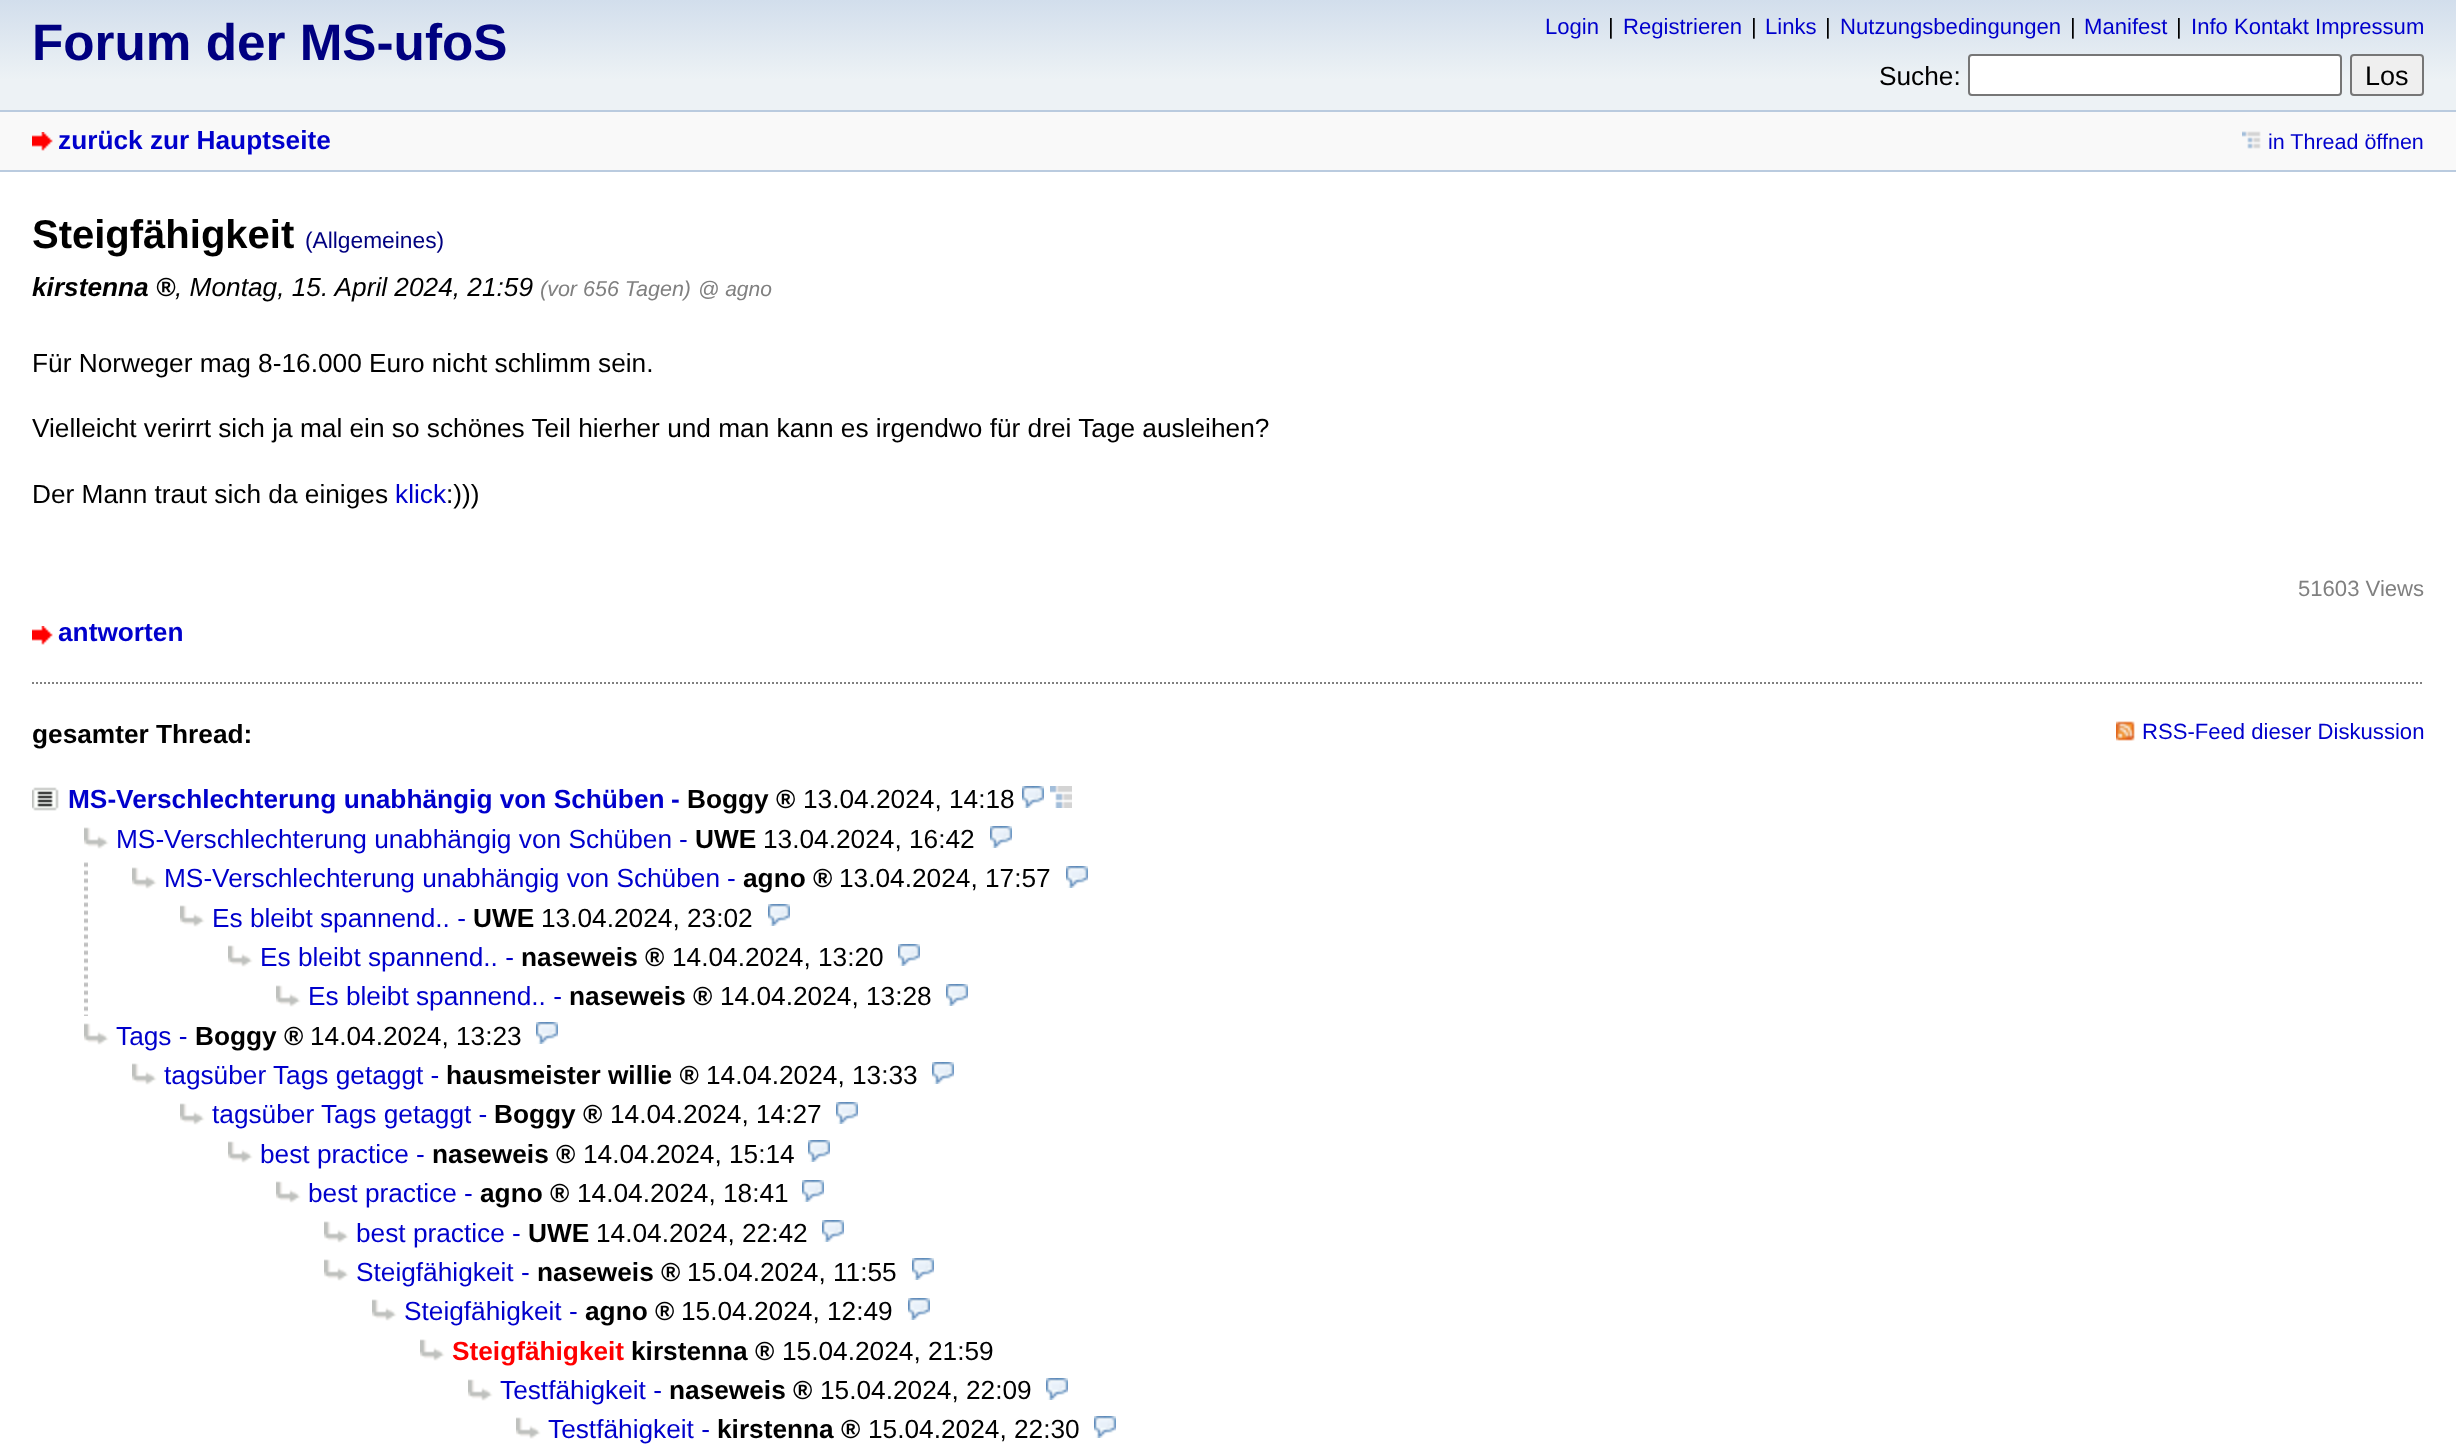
<svg xmlns="http://www.w3.org/2000/svg" width="2456" height="1446" viewBox="0 0 2456 1446">
  <defs>
    <linearGradient id="g1" gradientUnits="userSpaceOnUse" x1="1228" y1="0" x2="1228" y2="110"><stop offset="0" stop-color="#d2deec"/><stop offset="0.73" stop-color="#edf2f5"/><stop offset="1" stop-color="#edf2f5"/></linearGradient>
  </defs>
  <rect width="100%" height="100%" fill="#f9f9f9"/>
  <path d="M0 0h2456v110H0z" fill="url(#g1)"/>
  <rect x="1969" y="55" width="372" height="40" rx="3" fill="#fff" stroke="#767676" stroke-width="2"/>
  <rect x="2351" y="55" width="72" height="40" rx="3" fill="#efefef" stroke="#767676" stroke-width="2"/>
  <path d="M0 110h2456v2H0z" fill="#bacbdf"/>
  <path d="M0 170h2456v2H0z" fill="#bacbdf"/>
  <image x="32" y="132" width="21" height="19" href="img/1.png"/>
  <image x="2242" y="131" width="19" height="18" href="img/2.png"/>
  <path d="M0 172h2456v1274H0z" fill="#fff"/>
  <image x="32" y="626" width="21" height="19" href="img/3.png"/>
  <path d="M32 683H2424" fill="none" stroke="#808080" stroke-width="2" stroke-dasharray="2 2"/>
  <image x="2116" y="721" width="19" height="20" href="img/4.png"/>
  <image x="32" y="787" width="27" height="24" href="img/5.png"/>
  <image x="1022" y="786" width="22" height="22" href="img/6.png"/>
  <image x="1050" y="786" width="22" height="22" href="img/7.png"/>
  <image x="84" y="827" width="25" height="22" href="img/8.png"/>
  <image x="990" y="826" width="22" height="22" href="img/6.png"/>
  <image x="84" y="862" width="4" height="154" href="img/9.png"/>
  <image x="132" y="867" width="25" height="22" href="img/8.png"/>
  <image x="1066" y="866" width="22" height="22" href="img/6.png"/>
  <image x="180" y="905" width="25" height="22" href="img/8.png"/>
  <image x="768" y="904" width="22" height="22" href="img/6.png"/>
  <image x="228" y="945" width="25" height="22" href="img/8.png"/>
  <image x="898" y="944" width="22" height="22" href="img/6.png"/>
  <image x="276" y="985" width="25" height="22" href="img/8.png"/>
  <image x="946" y="984" width="22" height="22" href="img/6.png"/>
  <image x="84" y="1023" width="25" height="22" href="img/8.png"/>
  <image x="536" y="1022" width="22" height="22" href="img/6.png"/>
  <image x="132" y="1063" width="25" height="22" href="img/8.png"/>
  <image x="932" y="1062" width="22" height="22" href="img/6.png"/>
  <image x="180" y="1103" width="25" height="22" href="img/8.png"/>
  <image x="836" y="1102" width="22" height="22" href="img/6.png"/>
  <image x="228" y="1141" width="25" height="22" href="img/8.png"/>
  <image x="808" y="1140" width="22" height="22" href="img/6.png"/>
  <image x="276" y="1181" width="25" height="22" href="img/8.png"/>
  <image x="802" y="1180" width="22" height="22" href="img/6.png"/>
  <image x="324" y="1221" width="25" height="22" href="img/8.png"/>
  <image x="822" y="1220" width="22" height="22" href="img/6.png"/>
  <image x="324" y="1259" width="25" height="22" href="img/8.png"/>
  <image x="912" y="1258" width="22" height="22" href="img/6.png"/>
  <image x="372" y="1299" width="25" height="22" href="img/8.png"/>
  <image x="908" y="1298" width="22" height="22" href="img/6.png"/>
  <image x="420" y="1339" width="25" height="22" href="img/8.png"/>
  <image x="468" y="1379" width="25" height="22" href="img/8.png"/>
  <image x="1046" y="1378" width="22" height="22" href="img/6.png"/>
  <image x="516" y="1417" width="25" height="22" href="img/8.png"/>
  <image x="1094" y="1416" width="22" height="22" href="img/6.png"/>
  <text x="32" y="60" font-family="Liberation Sans" font-size="51.25" font-weight="bold" fill="#000080">Forum der MS-ufoS</text>
  <text x="1545" y="34" font-family="Liberation Sans" font-size="22.1" fill="#00c">Login</text>
  <text x="1608" y="34" font-family="Liberation Sans" font-size="22.1" fill="#000">|</text>
  <text x="1623" y="34" font-family="Liberation Sans" font-size="22.1" fill="#00c">Registrieren</text>
  <text x="1751" y="34" font-family="Liberation Sans" font-size="22.1" fill="#000">|</text>
  <text x="1765" y="34" font-family="Liberation Sans" font-size="22.1" fill="#00c">Links</text>
  <text x="1825" y="34" font-family="Liberation Sans" font-size="22.1" fill="#000">|</text>
  <text x="1840" y="34" font-family="Liberation Sans" font-size="22.1" fill="#00c">Nutzungsbedingungen</text>
  <text x="2070" y="34" font-family="Liberation Sans" font-size="22.1" fill="#000">|</text>
  <text x="2084" y="34" font-family="Liberation Sans" font-size="22.1" fill="#00c">Manifest</text>
  <text x="2176" y="34" font-family="Liberation Sans" font-size="22.1" fill="#000">|</text>
  <text x="2191" y="34" font-family="Liberation Sans" font-size="22.1" fill="#00c">Info Kontakt Impressum</text>
  <text x="1879" y="85" font-family="Liberation Sans" font-size="26.25" fill="#000">Suche:</text>
  <text x="2365" y="85" font-family="Liberation Sans" font-size="27" fill="#000">Los</text>
  <text x="58" y="149" font-family="Liberation Sans" font-size="26.25" font-weight="bold" fill="#00c">zurück zur Hauptseite</text>
  <text x="2268" y="149" font-family="Liberation Sans" font-size="21.5" fill="#00c">in Thread öffnen</text>
  <text x="32" y="248" font-family="Liberation Sans" font-size="40" font-weight="bold" fill="#000">Steigfähigkeit</text>
  <text x="305" y="248" font-family="Liberation Sans" font-size="22.75" fill="#000080">(Allgemeines)</text>
  <text x="32" y="296" font-family="Liberation Sans" font-size="26.25" font-weight="bold" font-style="italic" fill="#000">kirstenna ®</text>
  <text x="175" y="296" font-family="Liberation Sans" font-size="26.25" font-style="italic" fill="#000">, Montag, 15. April 2024, 21:59</text>
  <text x="540" y="296" font-family="Liberation Sans" font-size="21.5" font-style="italic" fill="#808080">(vor 656 Tagen)</text>
  <text x="698" y="296" font-family="Liberation Sans" font-size="21" font-style="italic" fill="#808080">@ agno</text>
  <g font-family="Liberation Sans" font-size="26.25" fill="#000">
    <text x="32" y="372">Für Norweger mag 8-16.000 Euro nicht schlimm sein.</text>
    <text x="32" y="437">Vielleicht verirrt sich ja mal ein so schönes Teil hierher und man kann es irgendwo für drei Tage ausleihen?</text>
    <text x="32" y="503">Der Mann traut sich da einiges</text>
  </g>
  <text x="395" y="503" font-family="Liberation Sans" font-size="26.25" fill="#00c">klick</text>
  <text x="446" y="503" font-family="Liberation Sans" font-size="26.25" fill="#000">:)))</text>
  <text x="2298" y="596" font-family="Liberation Sans" font-size="22.1" fill="#808080">51603 Views</text>
  <text x="58" y="641" font-family="Liberation Sans" font-size="26.25" font-weight="bold" fill="#00c">antworten</text>
  <text x="32" y="743" font-family="Liberation Sans" font-size="26.25" font-weight="bold" fill="#000">gesamter Thread:</text>
  <text x="2142" y="739" font-family="Liberation Sans" font-size="22.1" fill="#00c">RSS-Feed dieser Diskussion</text>
  <g font-family="Liberation Sans" font-size="26.25" font-weight="bold" fill="#00c">
    <text x="68" y="808">MS-Verschlechterung unabhängig von Schüben</text>
    <text x="671" y="808">-</text>
  </g>
  <text x="687" y="808" font-family="Liberation Sans" font-size="26.25" font-weight="bold" fill="#000">Boggy ®</text>
  <text x="803" y="808" font-family="Liberation Sans" font-size="26.25" fill="#000">13.04.2024, 14:18</text>
  <g font-family="Liberation Sans" font-size="26.25" fill="#00c">
    <text x="116" y="848">MS-Verschlechterung unabhängig von Schüben</text>
    <text x="679" y="848">-</text>
  </g>
  <text x="695" y="848" font-family="Liberation Sans" font-size="26.25" font-weight="bold" fill="#000">UWE</text>
  <text x="763" y="848" font-family="Liberation Sans" font-size="26.25" fill="#000">13.04.2024, 16:42</text>
  <g font-family="Liberation Sans" font-size="26.25" fill="#00c">
    <text x="164" y="887">MS-Verschlechterung unabhängig von Schüben</text>
    <text x="727" y="887">-</text>
  </g>
  <text x="743" y="887" font-family="Liberation Sans" font-size="26.25" font-weight="bold" fill="#000">agno ®</text>
  <text x="839" y="887" font-family="Liberation Sans" font-size="26.25" fill="#000">13.04.2024, 17:57</text>
  <text x="212" y="927" font-family="Liberation Sans" font-size="26.25" fill="#00c">Es bleibt spannend.. -</text>
  <text x="473" y="927" font-family="Liberation Sans" font-size="26.25" font-weight="bold" fill="#000">UWE</text>
  <text x="541" y="927" font-family="Liberation Sans" font-size="26.25" fill="#000">13.04.2024, 23:02</text>
  <text x="260" y="966" font-family="Liberation Sans" font-size="26.25" fill="#00c">Es bleibt spannend.. -</text>
  <text x="521" y="966" font-family="Liberation Sans" font-size="26.25" font-weight="bold" fill="#000">naseweis ®</text>
  <text x="672" y="966" font-family="Liberation Sans" font-size="26.25" fill="#000">14.04.2024, 13:20</text>
  <text x="308" y="1005" font-family="Liberation Sans" font-size="26.25" fill="#00c">Es bleibt spannend.. -</text>
  <text x="569" y="1005" font-family="Liberation Sans" font-size="26.25" font-weight="bold" fill="#000">naseweis ®</text>
  <text x="720" y="1005" font-family="Liberation Sans" font-size="26.25" fill="#000">14.04.2024, 13:28</text>
  <text x="116" y="1045" font-family="Liberation Sans" font-size="26.25" fill="#00c">Tags -</text>
  <text x="195" y="1045" font-family="Liberation Sans" font-size="26.25" font-weight="bold" fill="#000">Boggy ®</text>
  <text x="310" y="1045" font-family="Liberation Sans" font-size="26.25" fill="#000">14.04.2024, 13:23</text>
  <text x="164" y="1084" font-family="Liberation Sans" font-size="26.25" fill="#00c">tagsüber Tags getaggt -</text>
  <text x="446" y="1084" font-family="Liberation Sans" font-size="26.25" font-weight="bold" fill="#000">hausmeister willie ®</text>
  <text x="706" y="1084" font-family="Liberation Sans" font-size="26.25" fill="#000">14.04.2024, 13:33</text>
  <text x="212" y="1123" font-family="Liberation Sans" font-size="26.25" fill="#00c">tagsüber Tags getaggt -</text>
  <text x="494" y="1123" font-family="Liberation Sans" font-size="26.25" font-weight="bold" fill="#000">Boggy ®</text>
  <text x="610" y="1123" font-family="Liberation Sans" font-size="26.25" fill="#000">14.04.2024, 14:27</text>
  <text x="260" y="1163" font-family="Liberation Sans" font-size="26.25" fill="#00c">best practice -</text>
  <text x="432" y="1163" font-family="Liberation Sans" font-size="26.25" font-weight="bold" fill="#000">naseweis ®</text>
  <text x="583" y="1163" font-family="Liberation Sans" font-size="26.25" fill="#000">14.04.2024, 15:14</text>
  <text x="308" y="1202" font-family="Liberation Sans" font-size="26.25" fill="#00c">best practice -</text>
  <text x="480" y="1202" font-family="Liberation Sans" font-size="26.25" font-weight="bold" fill="#000">agno ®</text>
  <text x="577" y="1202" font-family="Liberation Sans" font-size="26.25" fill="#000">14.04.2024, 18:41</text>
  <text x="356" y="1242" font-family="Liberation Sans" font-size="26.25" fill="#00c">best practice -</text>
  <text x="528" y="1242" font-family="Liberation Sans" font-size="26.25" font-weight="bold" fill="#000">UWE</text>
  <text x="596" y="1242" font-family="Liberation Sans" font-size="26.25" fill="#000">14.04.2024, 22:42</text>
  <text x="356" y="1281" font-family="Liberation Sans" font-size="26.25" fill="#00c">Steigfähigkeit -</text>
  <text x="537" y="1281" font-family="Liberation Sans" font-size="26.25" font-weight="bold" fill="#000">naseweis ®</text>
  <text x="687" y="1281" font-family="Liberation Sans" font-size="26.25" fill="#000">15.04.2024, 11:55</text>
  <text x="404" y="1320" font-family="Liberation Sans" font-size="26.25" fill="#00c">Steigfähigkeit -</text>
  <text x="585" y="1320" font-family="Liberation Sans" font-size="26.25" font-weight="bold" fill="#000">agno ®</text>
  <text x="681" y="1320" font-family="Liberation Sans" font-size="26.25" fill="#000">15.04.2024, 12:49</text>
  <text x="452" y="1360" font-family="Liberation Sans" font-size="26.25" font-weight="bold" fill="#f00">Steigfähigkeit</text>
  <text x="631" y="1360" font-family="Liberation Sans" font-size="26.25" font-weight="bold" fill="#000">kirstenna ®</text>
  <text x="782" y="1360" font-family="Liberation Sans" font-size="26.25" fill="#000">15.04.2024, 21:59</text>
  <text x="500" y="1399" font-family="Liberation Sans" font-size="26.25" fill="#00c">Testfähigkeit -</text>
  <text x="669" y="1399" font-family="Liberation Sans" font-size="26.25" font-weight="bold" fill="#000">naseweis ®</text>
  <text x="820" y="1399" font-family="Liberation Sans" font-size="26.25" fill="#000">15.04.2024, 22:09</text>
  <text x="548" y="1438" font-family="Liberation Sans" font-size="26.25" fill="#00c">Testfähigkeit -</text>
  <text x="717" y="1438" font-family="Liberation Sans" font-size="26.25" font-weight="bold" fill="#000">kirstenna ®</text>
  <text x="868" y="1438" font-family="Liberation Sans" font-size="26.25" fill="#000">15.04.2024, 22:30</text>
</svg>
